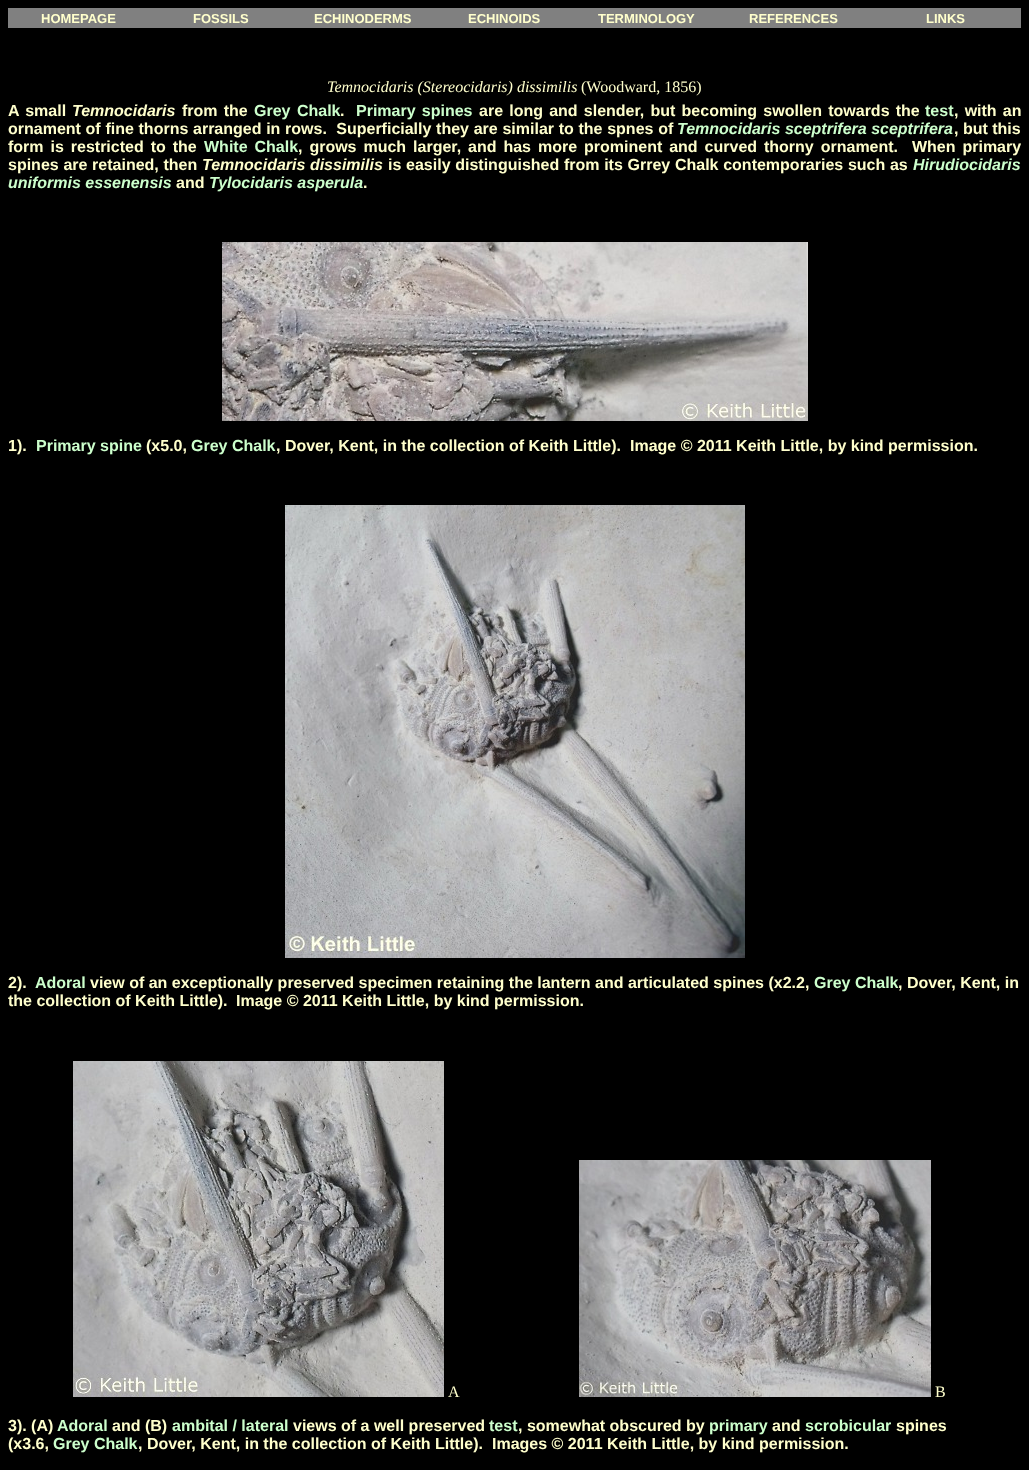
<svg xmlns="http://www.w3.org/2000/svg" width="1029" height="1470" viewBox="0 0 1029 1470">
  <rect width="100%" height="100%" fill="#000"/>
  <path d="M8 8h1013v20H8z" fill="#808080"/>
  <image x="222" y="242" width="586" height="179" href="img/1.png"/>
  <image x="285" y="505" width="460" height="453" href="img/2.png"/>
  <image x="73" y="1061" width="371" height="336" href="img/3.png"/>
  <image x="579" y="1160" width="352" height="237" href="img/4.png"/>
  <g font-family="Liberation Sans" font-size="13" font-weight="bold" fill="#ffc">
    <text x="41" y="23">HOMEPAGE</text>
    <text x="193" y="23">FOSSILS</text>
    <text x="314" y="23">ECHINODERMS</text>
    <text x="468" y="23">ECHINOIDS</text>
    <text x="598" y="23">TERMINOLOGY</text>
    <text x="749" y="23">REFERENCES</text>
    <text x="926" y="23">LINKS</text>
  </g>
  <text x="327" y="92" font-family="Liberation Serif" font-size="16" font-style="italic" fill="#ffc">Temnocidaris (Stereocidaris) dissimilis</text>
  <text x="581" y="92" font-family="Liberation Serif" font-size="16" fill="#ffc">(Woodward, 1856)</text>
  <text x="8" y="116" word-spacing="1.75" font-family="Liberation Sans" font-size="16" font-weight="bold" fill="#ffc">A small</text>
  <text x="72" y="116" font-family="Liberation Sans" font-size="16" font-weight="bold" font-style="italic" fill="#ffc">Temnocidaris</text>
  <text x="182" y="116" word-spacing="1.75" font-family="Liberation Sans" font-size="16" font-weight="bold" fill="#ffc">from the</text>
  <text x="254" y="116" word-spacing="2" font-family="Liberation Sans" font-size="16" font-weight="bold" fill="#cfc">Grey Chalk</text>
  <text x="340" y="116" font-family="Liberation Sans" font-size="16" font-weight="bold" fill="#ffc">.</text>
  <text x="356" y="116" word-spacing="1.75" font-family="Liberation Sans" font-size="16" font-weight="bold" fill="#cfc">Primary spines</text>
  <text x="479" y="116" word-spacing="1.75" font-family="Liberation Sans" font-size="16" font-weight="bold" fill="#ffc">are long and slender, but becoming swollen towards the</text>
  <text x="925" y="116" font-family="Liberation Sans" font-size="16" font-weight="bold" fill="#cfc">test</text>
  <g font-family="Liberation Sans" font-size="16" font-weight="bold" fill="#ffc">
    <text x="954" y="116" word-spacing="1.75">, with an</text>
    <text x="8" y="134" word-spacing="0.25" xml:space="preserve">ornament of fine thorns arranged in rows.  Superficially they are similar to the spnes of</text>
  </g>
  <text x="677" y="134" font-family="Liberation Sans" font-size="16" font-weight="bold" font-style="italic" fill="#cfc">Temnocidaris sceptrifera sceptrifera</text>
  <g font-family="Liberation Sans" font-size="16" font-weight="bold" fill="#ffc">
    <text x="954" y="134">, but this</text>
    <text x="8" y="152" word-spacing="2.5">form is restricted to the</text>
  </g>
  <text x="204" y="152" word-spacing="2.5" font-family="Liberation Sans" font-size="16" font-weight="bold" fill="#cfc">White Chalk</text>
  <g font-family="Liberation Sans" font-size="16" font-weight="bold" fill="#ffc">
    <text x="298" y="152" word-spacing="2.5" xml:space="preserve">, grows much larger, and has more prominent and curved thorny ornament.  When primary</text>
    <text x="8" y="170" word-spacing="0.25">spines are retained, then</text>
  </g>
  <text x="202" y="170" font-family="Liberation Sans" font-size="16" font-weight="bold" font-style="italic" fill="#ffc">Temnocidaris dissimilis</text>
  <text x="388" y="170" word-spacing="0.25" font-family="Liberation Sans" font-size="16" font-weight="bold" fill="#ffc">is easily distinguished from its Grrey Chalk contemporaries such as</text>
  <g font-family="Liberation Sans" font-size="16" font-weight="bold" font-style="italic" fill="#cfc">
    <text x="913" y="170">Hirudiocidaris</text>
    <text x="8" y="188">uniformis essenensis</text>
  </g>
  <text x="176" y="188" font-family="Liberation Sans" font-size="16" font-weight="bold" fill="#ffc">and</text>
  <text x="209" y="188" font-family="Liberation Sans" font-size="16" font-weight="bold" font-style="italic" fill="#cfc">Tylocidaris asperula</text>
  <g font-family="Liberation Sans" font-size="16" font-weight="bold" fill="#ffc">
    <text x="363" y="188">.</text>
    <text x="8" y="451">1).</text>
  </g>
  <text x="36" y="451" font-family="Liberation Sans" font-size="16" font-weight="bold" fill="#cfc">Primary spine</text>
  <text x="146" y="451" font-family="Liberation Sans" font-size="16" font-weight="bold" fill="#ffc">(x5.0,</text>
  <text x="191" y="451" font-family="Liberation Sans" font-size="16" font-weight="bold" fill="#cfc">Grey Chalk</text>
  <g font-family="Liberation Sans" font-size="16" font-weight="bold" fill="#ffc">
    <text x="276" y="451">, Dover, Kent, in the collection of Keith Little).</text>
    <text x="630" y="451">Image © 2011 Keith Little, by kind permission.</text>
    <text x="8" y="988">2).</text>
  </g>
  <text x="35" y="988" font-family="Liberation Sans" font-size="16" font-weight="bold" fill="#cfc">Adoral</text>
  <text x="90" y="988" font-family="Liberation Sans" font-size="16" font-weight="bold" fill="#ffc">view of an exceptionally preserved specimen retaining the lantern and articulated spines (x2.2,</text>
  <text x="814" y="988" font-family="Liberation Sans" font-size="16" font-weight="bold" fill="#cfc">Grey Chalk</text>
  <g font-family="Liberation Sans" font-size="16" font-weight="bold" fill="#ffc">
    <text x="898" y="988">, Dover, Kent, in</text>
    <text x="8" y="1006">the collection of Keith Little).</text>
    <text x="236" y="1006">Image © 2011 Keith Little, by kind permission.</text>
  </g>
  <g font-family="Liberation Serif" font-size="16" fill="#ffc">
    <text x="448" y="1397">A</text>
    <text x="935" y="1397">B</text>
  </g>
  <text x="8" y="1431" font-family="Liberation Sans" font-size="16" font-weight="bold" fill="#ffc">3). (A)</text>
  <text x="57" y="1431" font-family="Liberation Sans" font-size="16" font-weight="bold" fill="#cfc">Adoral</text>
  <text x="112" y="1431" font-family="Liberation Sans" font-size="16" font-weight="bold" fill="#ffc">and (B)</text>
  <text x="172" y="1431" font-family="Liberation Sans" font-size="16" font-weight="bold" fill="#cfc">ambital / lateral</text>
  <text x="293" y="1431" font-family="Liberation Sans" font-size="16" font-weight="bold" fill="#ffc">views of a well preserved</text>
  <text x="489" y="1431" font-family="Liberation Sans" font-size="16" font-weight="bold" fill="#cfc">test</text>
  <text x="518" y="1431" font-family="Liberation Sans" font-size="16" font-weight="bold" fill="#ffc">, somewhat obscured by</text>
  <text x="709" y="1431" font-family="Liberation Sans" font-size="16" font-weight="bold" fill="#cfc">primary</text>
  <text x="772" y="1431" font-family="Liberation Sans" font-size="16" font-weight="bold" fill="#ffc">and</text>
  <text x="805" y="1431" font-family="Liberation Sans" font-size="16" font-weight="bold" fill="#cfc">scrobicular</text>
  <g font-family="Liberation Sans" font-size="16" font-weight="bold" fill="#ffc">
    <text x="896" y="1431">spines</text>
    <text x="8" y="1449">(x3.6,</text>
  </g>
  <text x="53" y="1449" font-family="Liberation Sans" font-size="16" font-weight="bold" fill="#cfc">Grey Chalk</text>
  <g font-family="Liberation Sans" font-size="16" font-weight="bold" fill="#ffc">
    <text x="138" y="1449">, Dover, Kent, in the collection of Keith Little).</text>
    <text x="492" y="1449">Images © 2011 Keith Little, by kind permission.</text>
  </g>
</svg>
